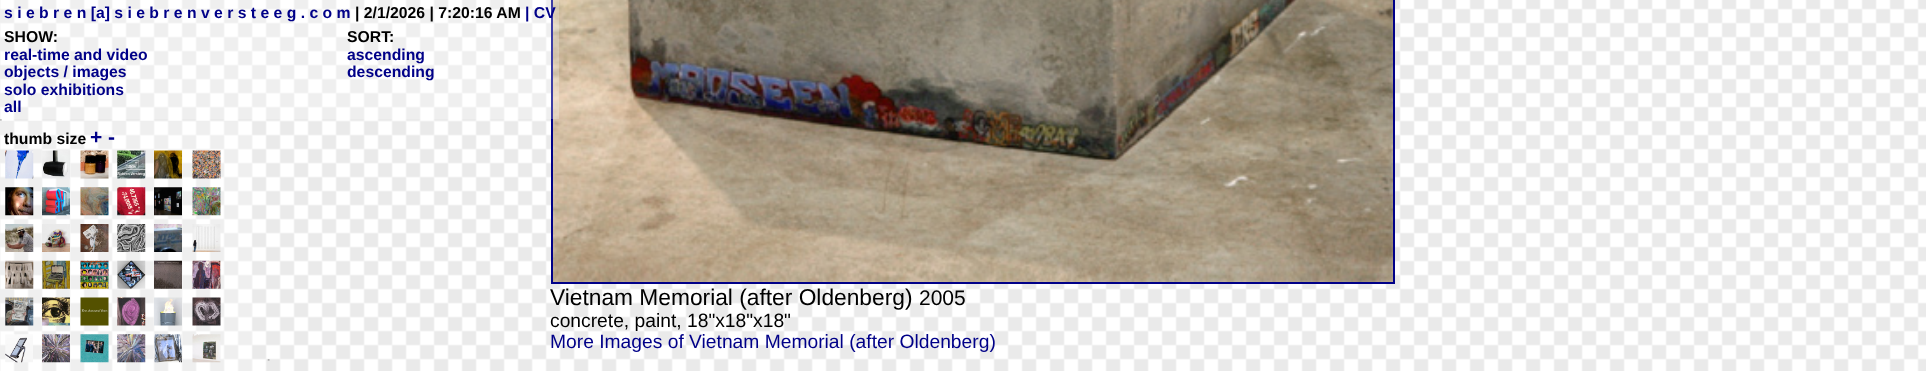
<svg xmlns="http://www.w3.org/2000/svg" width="1926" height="371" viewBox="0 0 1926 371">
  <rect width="100%" height="100%" fill="#fff"/>
  <image x="0" y="0" width="1926" height="371" href="img/1.png"/>
  <path d="M552 -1h842v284H552z" fill="none" stroke="#008" stroke-width="2"/>
  <image x="553" y="0" width="840" height="282" href="img/39.png"/>
  <path d="M1 0h558v119H1z" fill="#ffffff3d"/>
  <image x="0" y="119" width="2" height="2" href="img/2.png"/>
  <path d="M1 122h251v249H1z" fill="#ffffff3d"/>
  <image x="5" y="150" width="29" height="29" href="img/3.png"/>
  <image x="42" y="150" width="28" height="29" href="img/4.png"/>
  <image x="80" y="150" width="29" height="29" href="img/5.png"/>
  <image x="117" y="150" width="29" height="29" href="img/6.png"/>
  <image x="154" y="150" width="28" height="29" href="img/7.png"/>
  <image x="192" y="150" width="29" height="29" href="img/8.png"/>
  <image x="5" y="187" width="29" height="29" href="img/9.png"/>
  <image x="42" y="187" width="28" height="29" href="img/10.png"/>
  <image x="80" y="187" width="29" height="29" href="img/11.png"/>
  <image x="117" y="187" width="29" height="29" href="img/12.png"/>
  <image x="154" y="187" width="28" height="29" href="img/13.png"/>
  <image x="192" y="187" width="29" height="29" href="img/14.png"/>
  <image x="5" y="224" width="29" height="28" href="img/15.png"/>
  <image x="42" y="224" width="28" height="28" href="img/16.png"/>
  <image x="80" y="224" width="29" height="28" href="img/17.png"/>
  <image x="117" y="224" width="29" height="28" href="img/18.png"/>
  <image x="154" y="224" width="28" height="28" href="img/19.png"/>
  <image x="192" y="224" width="29" height="28" href="img/20.png"/>
  <image x="5" y="260" width="29" height="29" href="img/21.png"/>
  <image x="42" y="260" width="28" height="29" href="img/22.png"/>
  <image x="80" y="260" width="29" height="29" href="img/23.png"/>
  <image x="117" y="260" width="29" height="29" href="img/24.png"/>
  <image x="154" y="260" width="28" height="29" href="img/25.png"/>
  <image x="192" y="260" width="29" height="29" href="img/26.png"/>
  <image x="5" y="297" width="29" height="29" href="img/27.png"/>
  <image x="42" y="297" width="28" height="29" href="img/28.png"/>
  <image x="80" y="297" width="29" height="29" href="img/29.png"/>
  <image x="117" y="297" width="29" height="29" href="img/30.png"/>
  <image x="154" y="297" width="28" height="29" href="img/31.png"/>
  <image x="192" y="297" width="29" height="29" href="img/32.png"/>
  <image x="5" y="334" width="28" height="29" href="img/33.png"/>
  <image x="42" y="334" width="28" height="29" href="img/34.png"/>
  <image x="80" y="334" width="29" height="29" href="img/35.png"/>
  <image x="117" y="334" width="29" height="29" href="img/36.png"/>
  <image x="154" y="334" width="28" height="29" href="img/37.png"/>
  <image x="192" y="334" width="29" height="29" href="img/38.png"/>
  <image x="267" y="359" width="3" height="2" href="img/40.png"/>
  <text x="4" y="18" font-family="Liberation Sans" font-size="15.75" font-weight="bold" fill="#008">s i e b r e n [a] s i e b r e n v e r s t e e g . c o m</text>
  <text x="355" y="18" font-family="Liberation Sans" font-size="15.75" font-weight="bold" fill="#000">| 2/1/2026 | 7:20:16 AM</text>
  <text x="525" y="18" font-family="Liberation Sans" font-size="15.75" font-weight="bold" fill="#008">| CV</text>
  <text x="4" y="42" font-family="Liberation Sans" font-size="15.75" font-weight="bold" fill="#000">SHOW:</text>
  <g font-family="Liberation Sans" font-size="15.75" font-weight="bold" fill="#008">
    <text x="4" y="60">real-time and video</text>
    <text x="4" y="77">objects / images</text>
    <text x="4" y="95">solo exhibitions</text>
    <text x="4" y="112">all</text>
  </g>
  <text x="347" y="42" font-family="Liberation Sans" font-size="15.75" font-weight="bold" fill="#000">SORT:</text>
  <g font-family="Liberation Sans" font-size="15.75" font-weight="bold" fill="#008">
    <text x="347" y="60">ascending</text>
    <text x="347" y="77">descending</text>
  </g>
  <text x="4" y="144" font-family="Liberation Sans" font-size="15.75" font-weight="bold" fill="#000">thumb size</text>
  <text x="90" y="144" font-family="Liberation Sans" font-size="21" font-weight="bold" fill="#008">+ -</text>
  <text x="550" y="305" font-family="Liberation Sans" font-size="22.75" fill="#000">Vietnam Memorial (after Oldenberg)</text>
  <text x="919" y="305" font-family="Liberation Sans" font-size="21" fill="#000">2005</text>
  <text x="550" y="327" font-family="Liberation Sans" font-size="19.25" fill="#000">concrete, paint, 18"x18"x18"</text>
  <text x="550" y="348" font-family="Liberation Sans" font-size="19.25" fill="#008">More Images of Vietnam Memorial (after Oldenberg)</text>
</svg>
